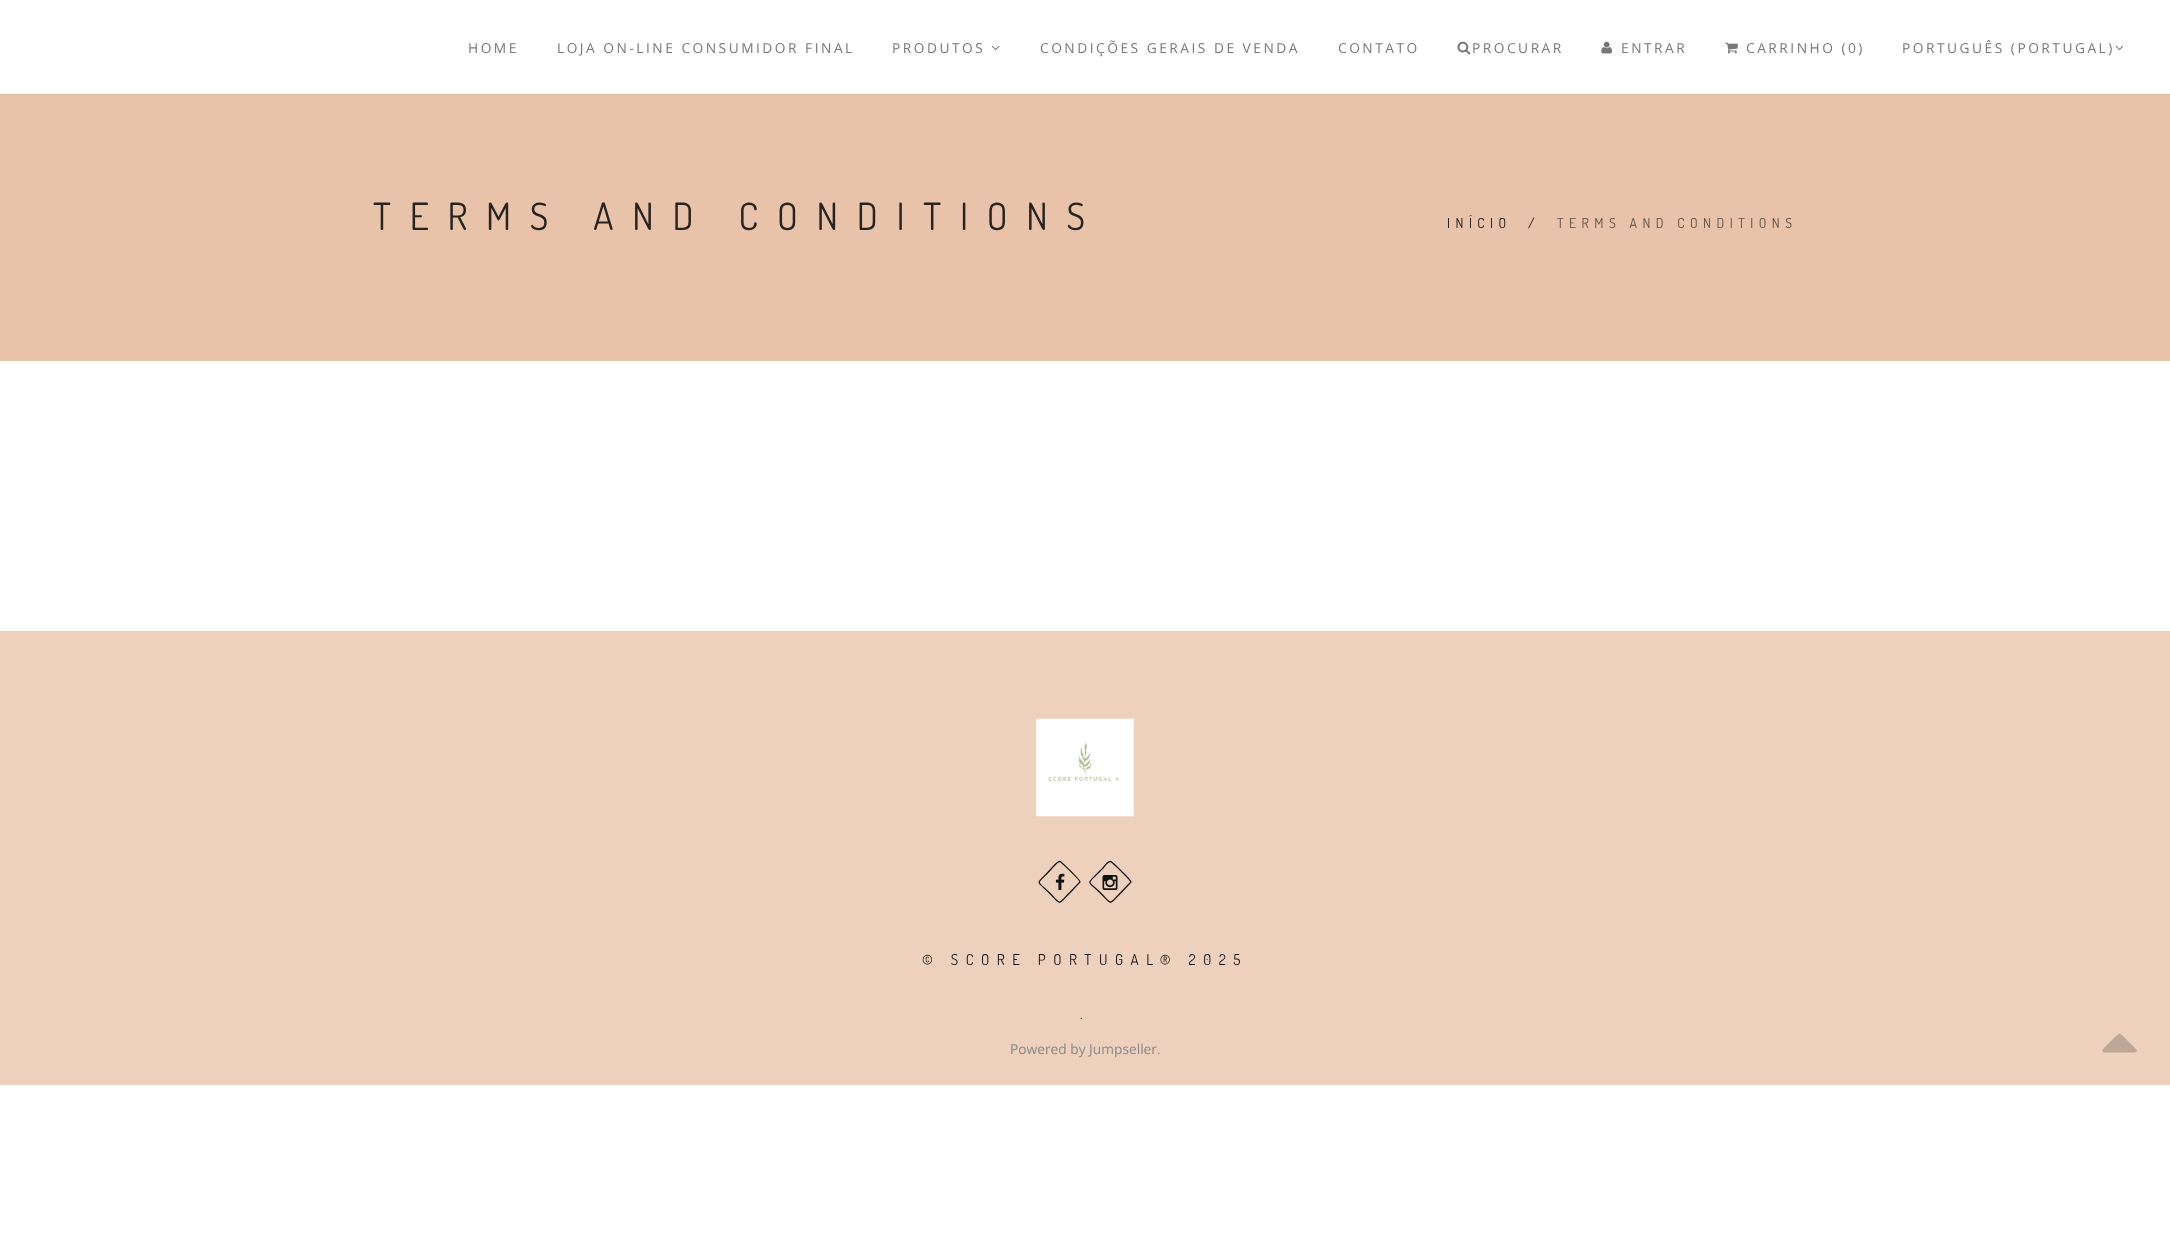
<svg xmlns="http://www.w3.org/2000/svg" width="2170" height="1258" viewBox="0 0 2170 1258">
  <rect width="100%" height="100%" fill="#fff"/>
  <path d="M0 94h2170v1H0z" fill="#dcb9a1"/>
  <image x="991" y="45" width="9" height="6" href="img/1.png"/>
  <image x="1457" y="41" width="14" height="14" href="img/2.png"/>
  <image x="1601" y="41" width="12" height="13" href="img/3.png"/>
  <image x="1725" y="42" width="13" height="12" href="img/4.png"/>
  <image x="2115" y="45" width="9" height="6" href="img/5.png"/>
  <path d="M0 95h2170v266H0z" fill="#e8c3a9"/>
  <path d="M0 631h2170v454H0z" fill="#eed1bd"/>
  <image x="1036" y="718" width="98" height="99" href="img/6.png"/>
  <path d="M1061 862C1063.5 864.5 1080.5 880 1080 882L1070 892.5C1057 905.5 1062 905.5 1049 892.5C1037.5 881 1035.5 884.5 1046 874.5L1052 868C1053 867 1058.5 859.5 1061 862Z" fill="none" stroke="#111" stroke-width="1.3"/>
  <image x="1055" y="873" width="10" height="17" href="img/7.png"/>
  <path d="M1111.5 862C1114.5 864.5 1131 880 1131 882L1121 892.5C1108 905.5 1113 905.5 1100 892.5C1088 881 1086.5 884.5 1096.5 874.5L1103 868C1104 867 1109 859.5 1111.5 862Z" fill="none" stroke="#111" stroke-width="1.3"/>
  <image x="1102" y="875" width="16" height="15" href="img/8.png"/>
  <path d="M2136 1049L2136.5 1049.5C2138.5 1053.5 2130.5 1052.5 2129.5 1052.5H2104C2102.5 1052.5 2102 1050 2103 1049L2115.5 1036.5C2120 1032.5 2119.5 1032.5 2123.5 1036.5Z" fill="#bea797"/>
  <g font-family="Open Sans" font-size="13.75" letter-spacing="2.5" fill="#777">
    <text x="468" y="53">HOME</text>
    <text x="557" y="53">LOJA ON-LINE CONSUMIDOR FINAL</text>
    <text x="892" y="53">PRODUTOS</text>
    <text x="1040" y="53">CONDIÇÕES GERAIS DE VENDA</text>
    <text x="1338" y="53">CONTATO</text>
    <text x="1472" y="53">PROCURAR</text>
    <text x="1621" y="53">ENTRAR</text>
    <text x="1746" y="53">CARRINHO (0)</text>
    <text x="1902" y="53">PORTUGUÊS (PORTUGAL)</text>
  </g>
  <text x="373" y="230" font-family="Dosis" font-size="37.5" letter-spacing="18.75" fill="#272320">TERMS AND CONDITIONS</text>
  <g font-family="Dosis" font-size="13.75" letter-spacing="5.5" fill="#111">
    <text x="1447" y="228">INÍCIO</text>
    <text x="1528" y="228">/</text>
  </g>
  <text x="1557" y="228" font-family="Dosis" font-size="13.75" letter-spacing="5.5" fill="#5c4f46">TERMS AND CONDITIONS</text>
  <g font-family="Dosis" font-size="15" letter-spacing="7.5" fill="#111">
    <text x="922" y="965">© SCORE PORTUGAL® 2025</text>
    <text x="1080" y="1019">.</text>
  </g>
  <text x="1010" y="1054" font-family="Open Sans" font-size="13.75" fill="#888">Powered by Jumpseller</text>
  <text x="1157" y="1054" font-family="Open Sans" font-size="13.75" fill="#999">.</text>
</svg>
